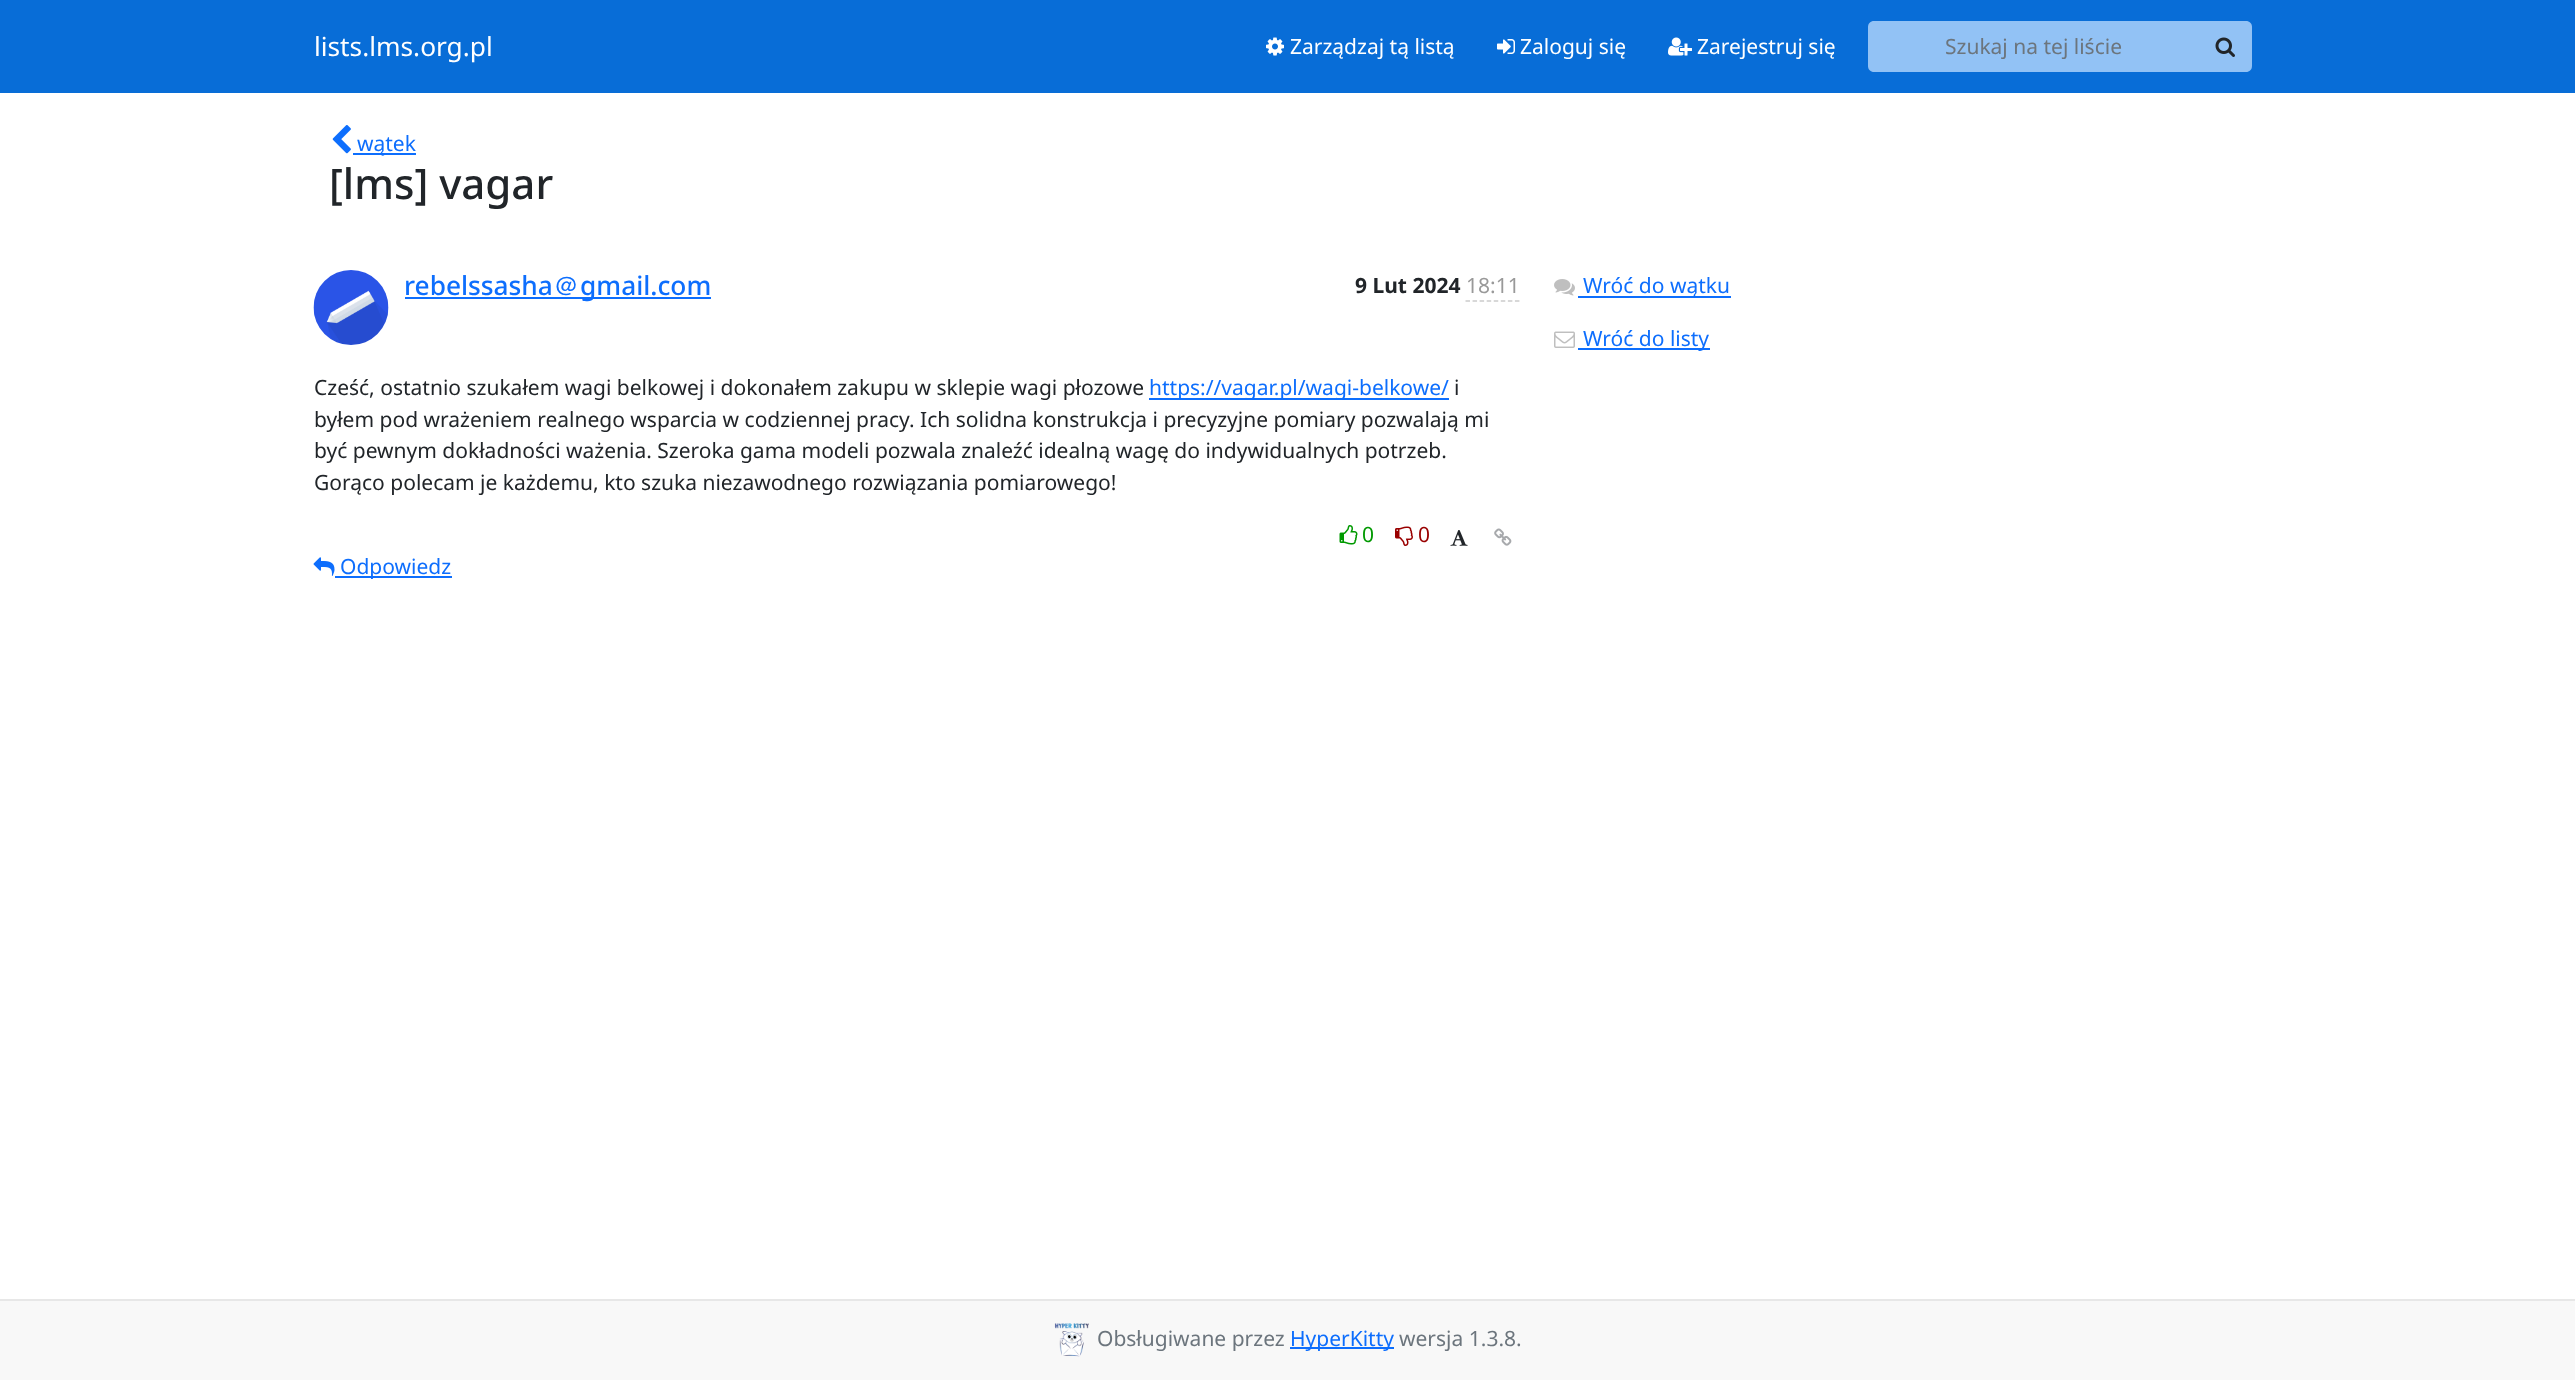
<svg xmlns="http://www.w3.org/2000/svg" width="2575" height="1380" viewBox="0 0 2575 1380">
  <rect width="100%" height="100%" fill="#fff"/>
  <path d="M0 0h2575v93H0z" fill="#086dd7"/>
  <image x="1266" y="37" width="18" height="19" href="img/1.png"/>
  <image x="1497" y="39" width="18" height="15" href="img/2.png"/>
  <image x="1668" y="37" width="24" height="19" href="img/3.png"/>
  <path d="M1874 21H2199V72H1874C1870.5 72 1868 69.5 1868 66V27C1868 23.5 1870.5 21 1874 21Z" fill="#92c2f5"/>
  <path d="M2198 21H2246C2249.5 21 2252 23.5 2252 27V66C2252 69.5 2249.5 72 2246 72H2198Z" fill="#92c2f5"/>
  <image x="2215" y="37" width="20" height="20" href="img/4.png"/>
  <image x="332" y="125" width="19" height="29" href="img/5.png"/>
  <path d="M353 153h63v2H353z" fill="#0d6efd"/>
  <image x="313" y="270" width="76" height="75" href="img/6.png"/>
  <path d="M405 297h306v2H405z" fill="#0d6efd"/>
  <path d="M1465.5 301H1519.5" fill="none" stroke="#ccc" stroke-width="1.5" stroke-dasharray="4.5 2.56"/>
  <path d="M1149 398h300v2H1149z" fill="#0d6efd"/>
  <image x="1339" y="525" width="19" height="20" href="img/7.png"/>
  <image x="1395" y="526" width="18" height="20" href="img/8.png"/>
  <image x="1450" y="530" width="18" height="16" href="img/9.png"/>
  <image x="1494" y="528" width="18" height="18" href="img/10.png"/>
  <image x="313" y="557" width="22" height="19" href="img/11.png"/>
  <path d="M335 576h117v2H335z" fill="#0d6efd"/>
  <image x="1554" y="279" width="21" height="17" href="img/12.png"/>
  <path d="M1578 296h153v2H1578z" fill="#0d6efd"/>
  <image x="1554" y="331" width="21" height="17" href="img/13.png"/>
  <path d="M1578 348h132v2H1578z" fill="#0d6efd"/>
  <path d="M0 1301h2575v79H0z" fill="#f8f8f8"/>
  <path d="M0 1299h2575v2H0z" fill="#e7e7e7"/>
  <image x="1054" y="1323" width="35" height="34" href="img/14.png"/>
  <path d="M1290 1347h104v2H1290z" fill="#0d6efd"/>
  <text x="314" y="56" font-family="Noto Sans" font-size="26.25" fill="#fff">lists.lms.org.pl</text>
  <g font-family="Noto Sans" font-size="21" fill="#fff">
    <text x="1290" y="54">Zarządzaj tą listą</text>
    <text x="1520" y="54">Zaloguj się</text>
    <text x="1697" y="54">Zarejestruj się</text>
  </g>
  <text x="1945" y="54" font-family="Noto Sans" font-size="21" fill="#6c757d">Szukaj na tej liście</text>
  <text x="357" y="151" font-family="Noto Sans" font-size="21" fill="#0d6efd">wątek</text>
  <text x="329" y="199" font-family="Noto Sans" font-size="42" font-weight="500" fill="#212529">[lms] vagar</text>
  <text x="404" y="295" font-family="Noto Sans" font-size="26.25" font-weight="500" fill="#0d6efd">rebelssasha</text>
  <text x="553" y="295" font-family="WenQuanYi Zen Hei" font-size="26.25" font-weight="500" fill="#0d6efd">＠</text>
  <text x="580" y="295" font-family="Noto Sans" font-size="26.25" font-weight="500" fill="#0d6efd">gmail.com</text>
  <text x="1355" y="293" font-family="Noto Sans" font-size="21" font-weight="bold" fill="#212529">9 Lut 2024</text>
  <text x="1466" y="293" font-family="Noto Sans" font-size="21" fill="#999">18:11</text>
  <text x="314" y="395" font-family="Noto Sans" font-size="21" fill="#212529">Cześć, ostatnio szukałem wagi belkowej i dokonałem zakupu w sklepie wagi płozowe</text>
  <text x="1149" y="395" font-family="Noto Sans" font-size="21" fill="#0d6efd">https://vagar.pl/wagi-belkowe/</text>
  <g font-family="Noto Sans" font-size="21" fill="#212529">
    <text x="1454" y="395">i</text>
    <text x="314" y="427">byłem pod wrażeniem realnego wsparcia w codziennej pracy. Ich solidna konstrukcja i precyzyjne pomiary pozwalają mi</text>
    <text x="314" y="458">być pewnym dokładności ważenia. Szeroka gama modeli pozwala znaleźć idealną wagę do indywidualnych potrzeb.</text>
    <text x="314" y="490">Gorąco polecam je każdemu, kto szuka niezawodnego rozwiązania pomiarowego!</text>
  </g>
  <text x="1362" y="542" font-family="Noto Sans" font-size="21" fill="#090">0</text>
  <text x="1418" y="542" font-family="Noto Sans" font-size="21" fill="#900">0</text>
  <g font-family="Noto Sans" font-size="21" fill="#0d6efd">
    <text x="340" y="574">Odpowiedz</text>
    <text x="1583" y="293">Wróć do wątku</text>
    <text x="1583" y="346">Wróć do listy</text>
  </g>
  <text x="1097" y="1346" font-family="Noto Sans" font-size="21" fill="#6c757d">Obsługiwane przez</text>
  <text x="1290" y="1346" font-family="Noto Sans" font-size="21" fill="#0d6efd">HyperKitty</text>
  <text x="1399" y="1346" font-family="Noto Sans" font-size="21" fill="#6c757d">wersja 1.3.8.</text>
</svg>
